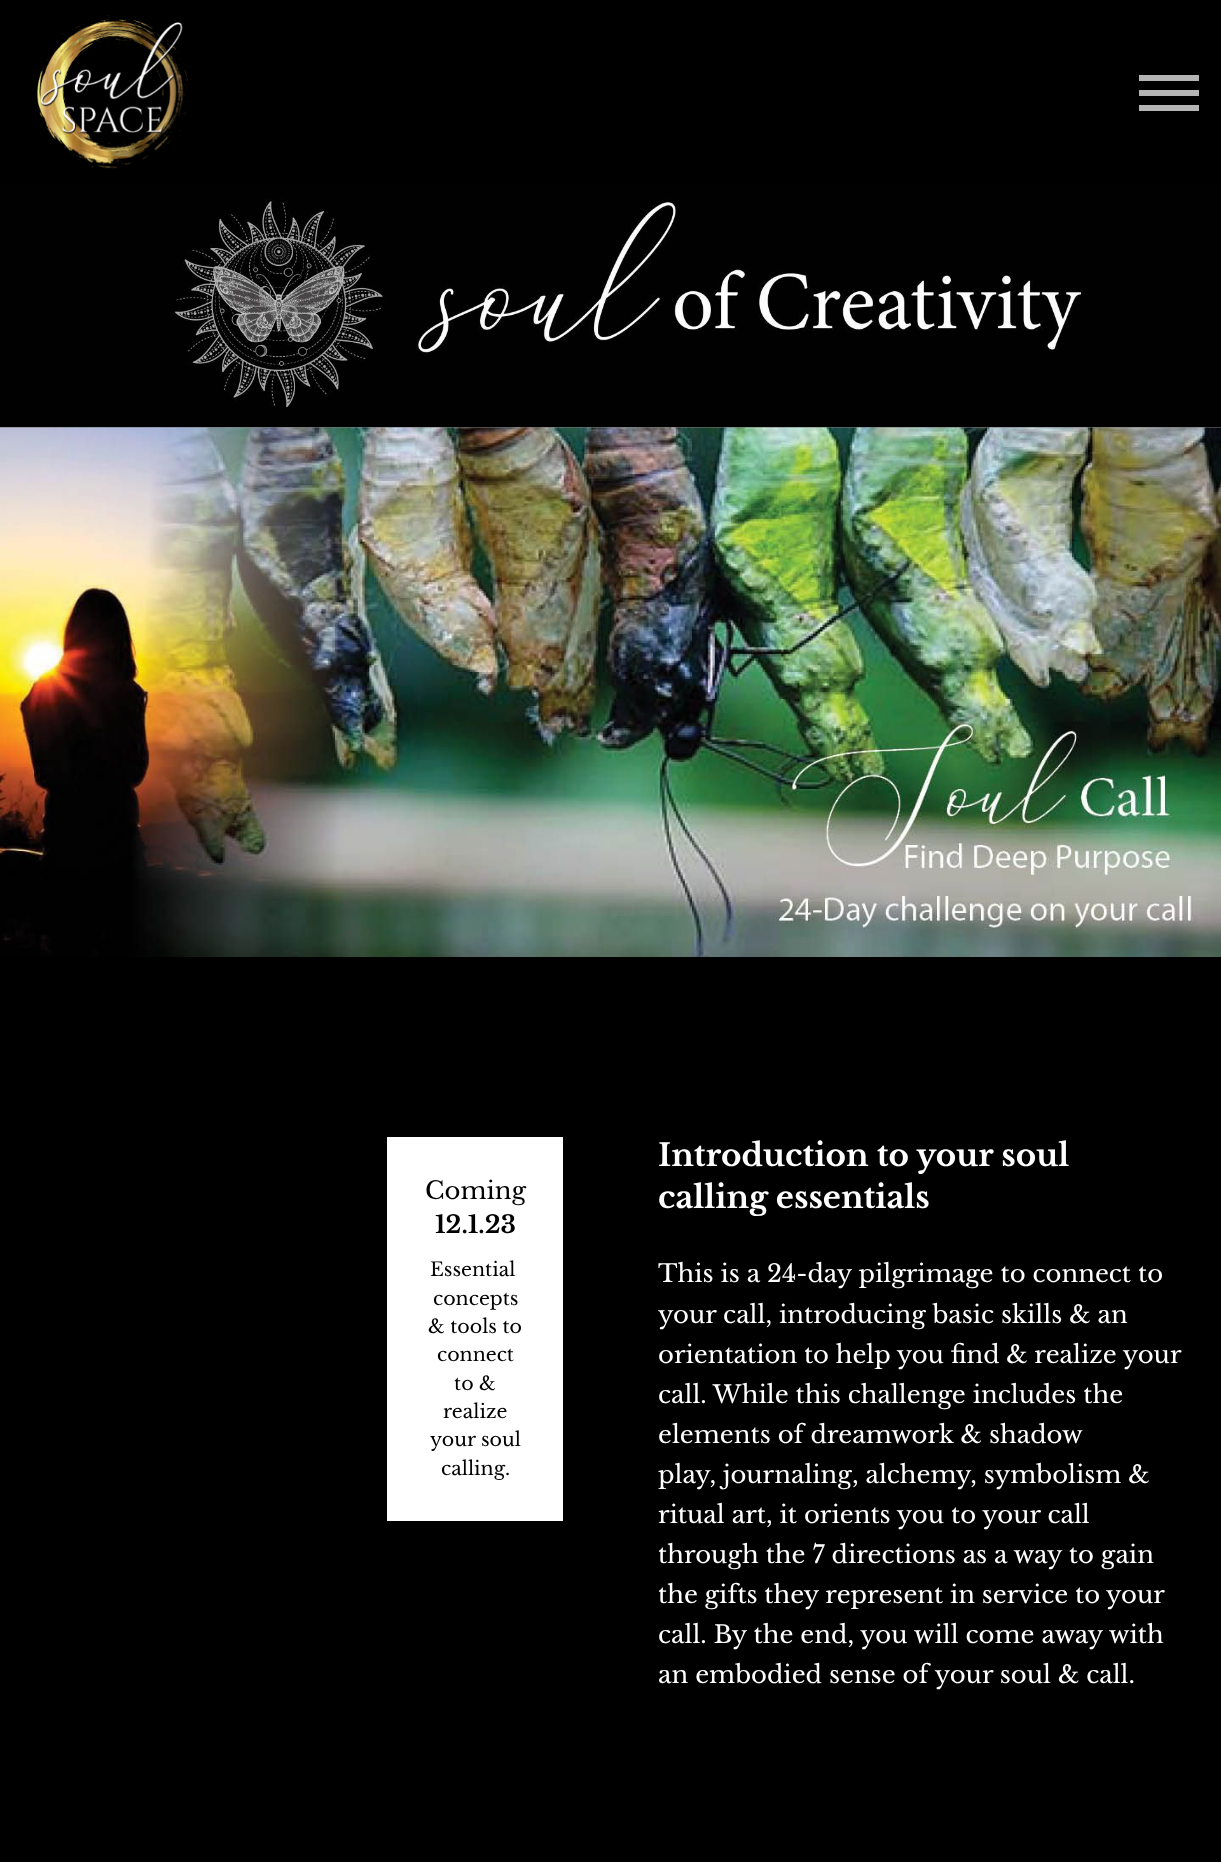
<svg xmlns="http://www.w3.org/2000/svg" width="1221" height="1862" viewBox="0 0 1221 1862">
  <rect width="100%" height="100%" fill="#fff"/>
  <path d="M0 0h1221v183H0z" fill="#000"/>
  <image x="37" y="15" width="151" height="154" href="img/1.png"/>
  <path d="M1139 105h60v6H1139z" fill="#b4b4b4"/>
  <path d="M1139 75h60v6H1139z" fill="#b4b4b4"/>
  <path d="M1139 90h60v6H1139z" fill="#b4b4b4"/>
  <image x="0" y="183" width="1221" height="245" href="img/2.png"/>
  <image x="0" y="427" width="1221" height="530" href="img/3.png"/>
  <path d="M0 957h1221v905H0z" fill="#000"/>
  <path d="M387 1137h176v384H387z" fill="#fff"/>
  <text x="425" y="1199" font-family="Libre Baskerville" font-size="24.3" fill="#000">Coming</text>
  <text x="435" y="1233" font-family="Libre Baskerville" font-size="24.3" font-weight="bold" fill="#000">12.1.23</text>
  <g font-family="Libre Baskerville" font-size="19" fill="#000">
    <text x="430" y="1276">Essential</text>
    <text x="433" y="1305">concepts</text>
    <text x="428" y="1333">&amp; tools to</text>
    <text x="437" y="1361">connect</text>
    <text x="454" y="1390">to &amp;</text>
    <text x="443" y="1418">realize</text>
    <text x="430" y="1446">your soul</text>
    <text x="441" y="1475">calling.</text>
  </g>
  <g font-family="Libre Baskerville" font-size="31" font-weight="bold" fill="#fff">
    <text x="658" y="1166">Introduction to your soul</text>
    <text x="658" y="1208">calling essentials</text>
  </g>
  <g font-family="Libre Baskerville" font-size="24.3" fill="#fff">
    <text x="658" y="1282">This is a 24-day pilgrimage to connect to</text>
    <text x="658" y="1323">your call, introducing basic skills &amp; an</text>
    <text x="658" y="1363" word-spacing="-0.25">orientation to help you find &amp; realize your</text>
    <text x="658" y="1403">call. While this challenge includes the</text>
    <text x="658" y="1443">elements of dreamwork &amp; shadow</text>
    <text x="658" y="1483">play, journaling, alchemy, symbolism &amp;</text>
    <text x="658" y="1523">ritual art, it orients you to your call</text>
    <text x="658" y="1563">through the 7 directions as a way to gain</text>
    <text x="658" y="1603" word-spacing="-0.25">the gifts they represent in service to your</text>
    <text x="658" y="1643">call. By the end, you will come away with</text>
    <text x="658" y="1683">an embodied sense of your soul &amp; call.</text>
  </g>
</svg>
